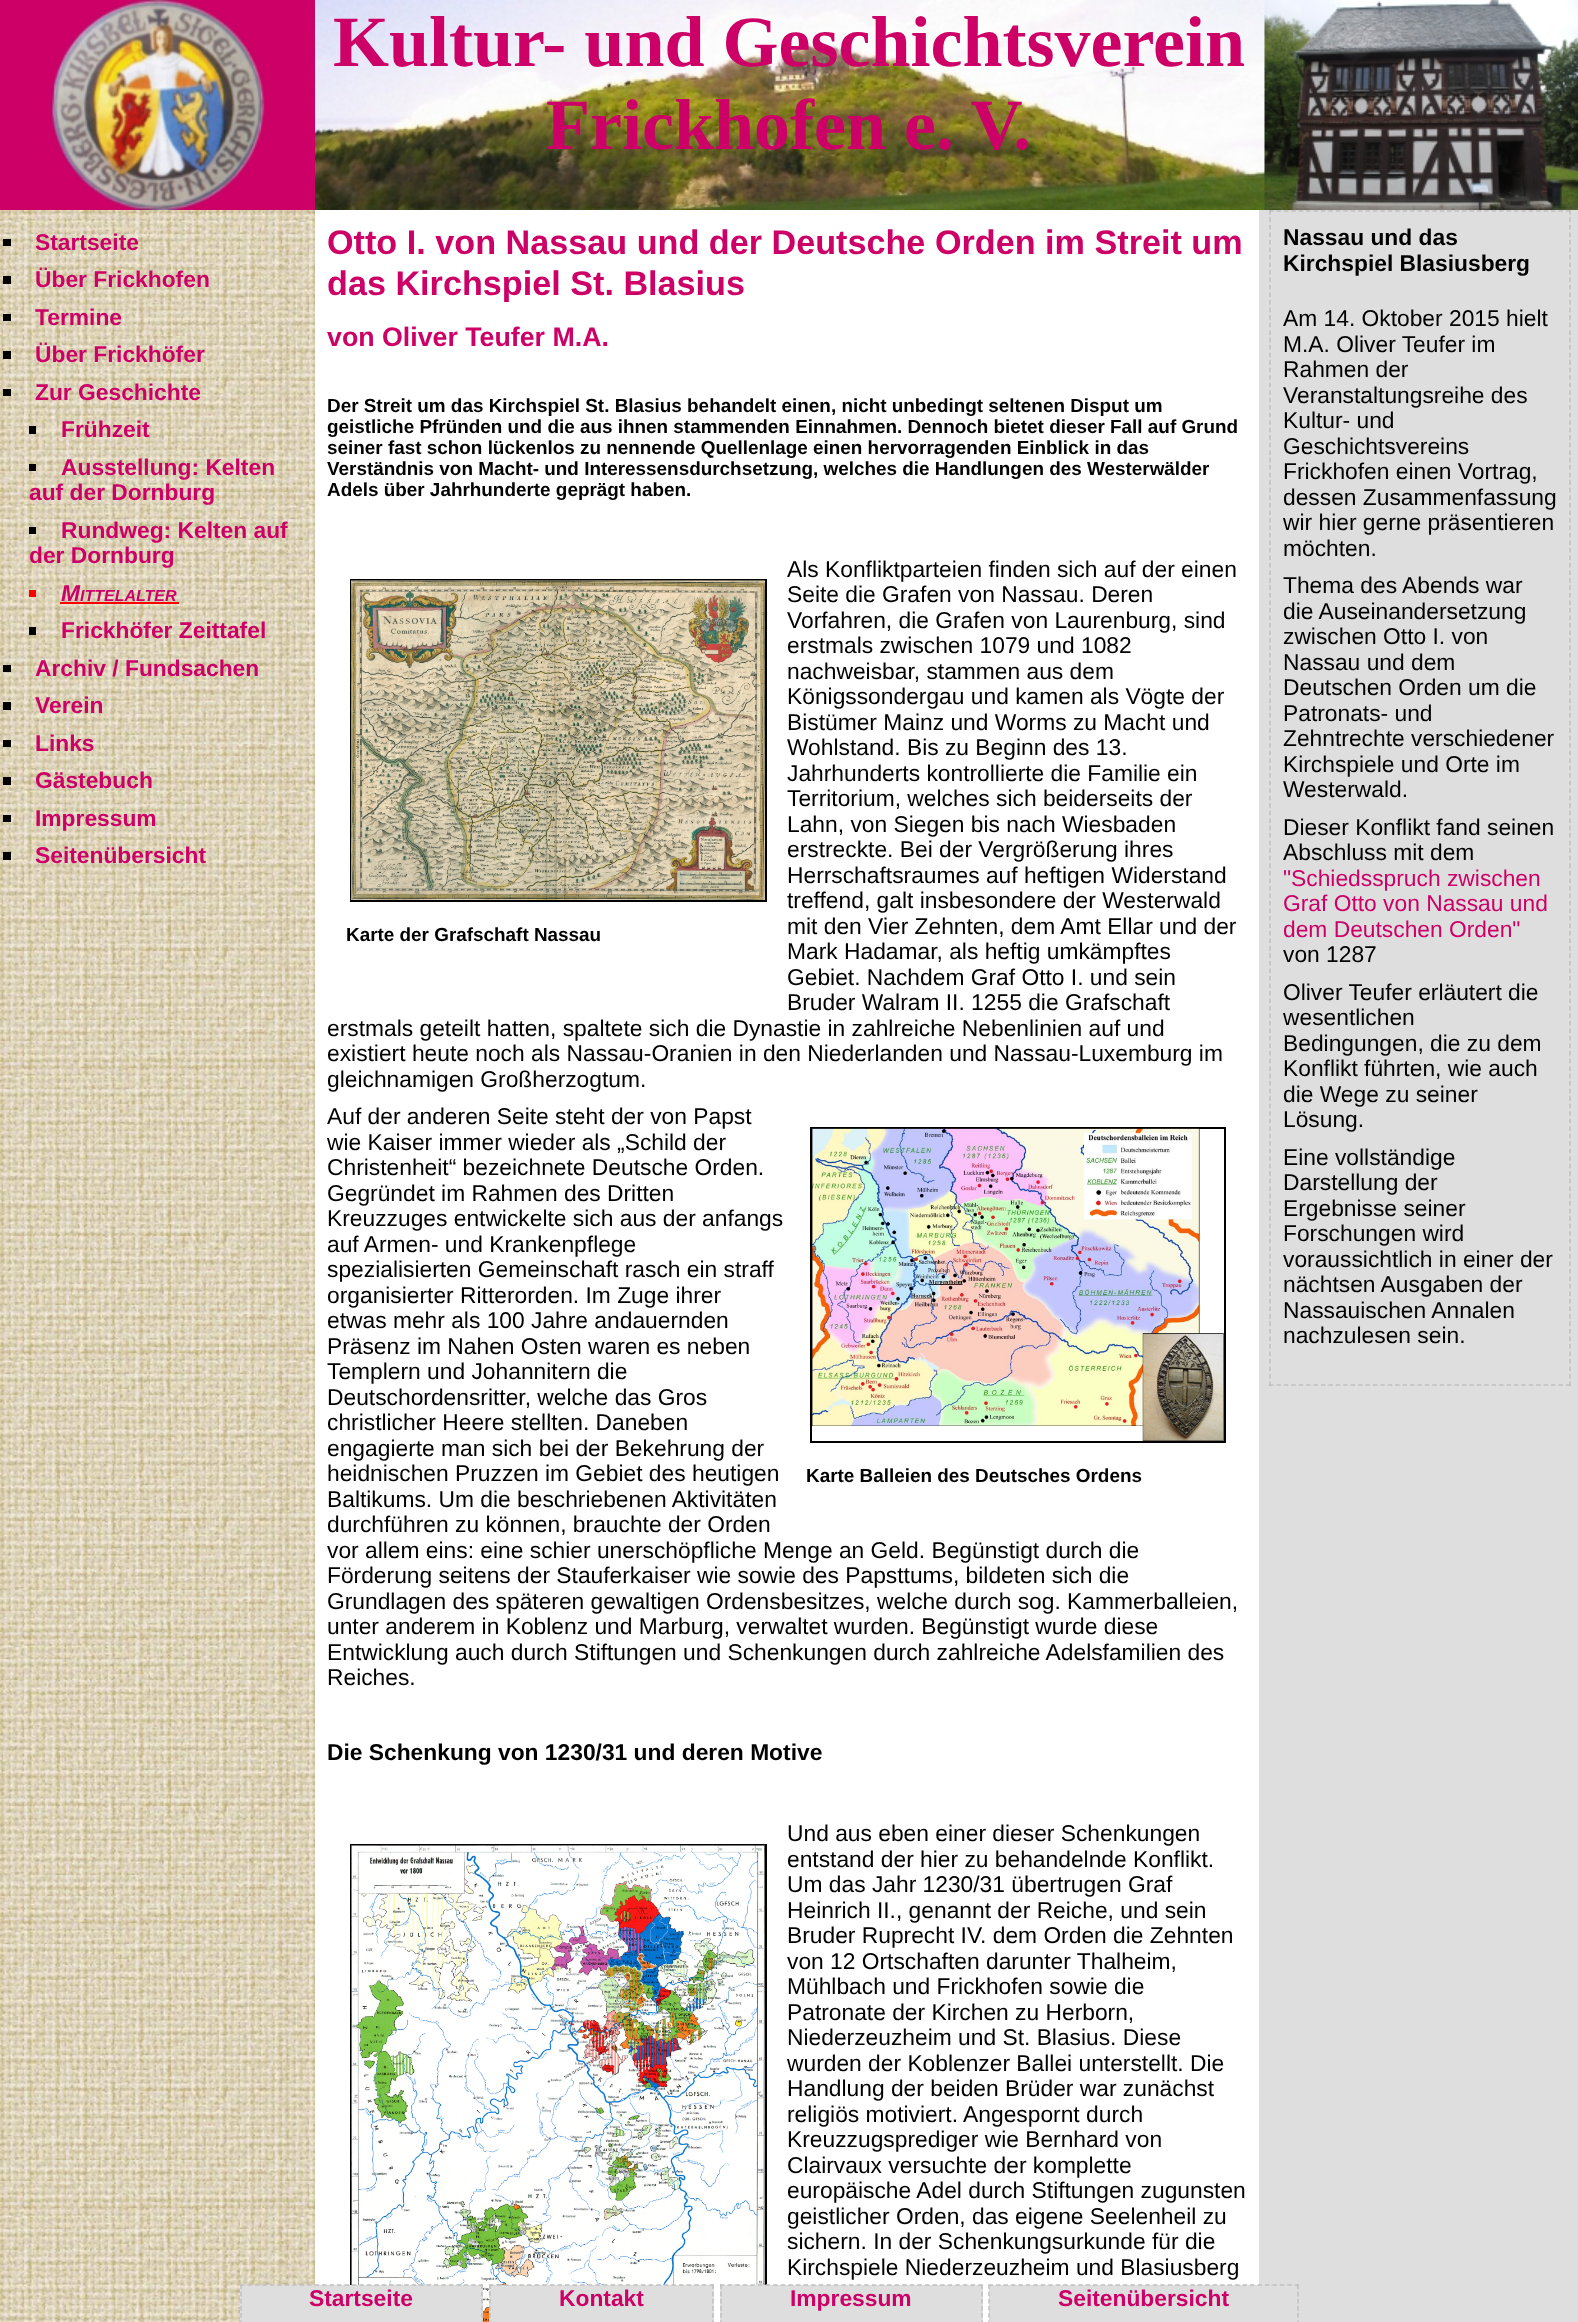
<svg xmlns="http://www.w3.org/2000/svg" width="1578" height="2322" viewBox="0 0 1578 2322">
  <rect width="100%" height="100%" fill="#fff"/>
  <image x="0" y="0" width="1578" height="210" href="img/1.png"/>
  <image x="0" y="210" width="315" height="2112" href="img/2.png"/>
  <path d="M3 239h8v7H3z" fill="#000"/>
  <path d="M3 276h8v8H3z" fill="#000"/>
  <path d="M3 314h8v7H3z" fill="#000"/>
  <path d="M3 351h8v8H3z" fill="#000"/>
  <path d="M3 389h8v7H3z" fill="#000"/>
  <path d="M29 426h7v8H29z" fill="#000"/>
  <path d="M29 464h7v7H29z" fill="#000"/>
  <path d="M29 527h7v7H29z" fill="#000"/>
  <path d="M29 590h7v7H29z" fill="#f00"/>
  <path d="M60 602h119v2H60z" fill="#f00"/>
  <path d="M29 627h7v8H29z" fill="#000"/>
  <path d="M3 665h8v7H3z" fill="#000"/>
  <path d="M3 702h8v8H3z" fill="#000"/>
  <path d="M3 740h8v7H3z" fill="#000"/>
  <path d="M3 777h8v8H3z" fill="#000"/>
  <path d="M3 815h8v7H3z" fill="#000"/>
  <path d="M3 852h8v8H3z" fill="#000"/>
  <path d="M1259 210h319v2112H1259z" fill="#dedede"/>
  <path d="M351 580h415v321H351z" fill="none" stroke="#000" stroke-width="2"/>
  <image x="351" y="580" width="414" height="320" href="img/3.png"/>
  <path d="M811 1128h414v314H811z" fill="none" stroke="#000" stroke-width="2"/>
  <image x="812" y="1128" width="412" height="313" href="img/4.png"/>
  <path d="M351 1845h415v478H351z" fill="none" stroke="#000" stroke-width="2"/>
  <image x="351" y="1845" width="414" height="477" href="img/5.png"/>
  <path d="M1269 211H1570.5" fill="none" stroke="#c0c0c0" stroke-width="1.5" stroke-dasharray="4.5 2.92"/>
  <path d="M1570 210V1386" fill="none" stroke="#c0c0c0" stroke-width="1.5" stroke-dasharray="4.5 3.01"/>
  <path d="M1269 1385H1570.5" fill="none" stroke="#c0c0c0" stroke-width="1.5" stroke-dasharray="4.5 2.92"/>
  <path d="M1270 210V1386" fill="none" stroke="#c0c0c0" stroke-width="1.5" stroke-dasharray="4.5 3.01"/>
  <path d="M240 2285h243v37H240z" fill="#dedede"/>
  <path d="M240 2285H483" fill="none" stroke="#c0c0c0" stroke-width="1.5" stroke-dasharray="4.5 2.96"/>
  <path d="M482 2284.5V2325" fill="none" stroke="#c0c0c0" stroke-width="1.5" stroke-dasharray="4.5 2.7"/>
  <path d="M241 2284.5V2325" fill="none" stroke="#c0c0c0" stroke-width="1.5" stroke-dasharray="4.5 2.7"/>
  <path d="M489 2285h225v37H489z" fill="#dedede"/>
  <path d="M489 2285H714" fill="none" stroke="#c0c0c0" stroke-width="1.5" stroke-dasharray="4.5 3.1"/>
  <path d="M713 2284.5V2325" fill="none" stroke="#c0c0c0" stroke-width="1.5" stroke-dasharray="4.5 2.7"/>
  <path d="M490 2284.5V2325" fill="none" stroke="#c0c0c0" stroke-width="1.5" stroke-dasharray="4.5 2.7"/>
  <path d="M720 2285h263v37H720z" fill="#dedede"/>
  <path d="M720 2285H982.5" fill="none" stroke="#c0c0c0" stroke-width="1.5" stroke-dasharray="4.5 3.09"/>
  <path d="M982 2284.5V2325" fill="none" stroke="#c0c0c0" stroke-width="1.5" stroke-dasharray="4.5 2.7"/>
  <path d="M721 2284.5V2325" fill="none" stroke="#c0c0c0" stroke-width="1.5" stroke-dasharray="4.5 2.7"/>
  <path d="M989 2285h270v37H989z" fill="#dedede"/>
  <path d="M988.5 2285H1299" fill="none" stroke="#c0c0c0" stroke-width="1.5" stroke-dasharray="4.5 2.97"/>
  <path d="M1298 2284.5V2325" fill="none" stroke="#c0c0c0" stroke-width="1.5" stroke-dasharray="4.5 2.7"/>
  <path d="M989 2284.5V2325" fill="none" stroke="#c0c0c0" stroke-width="1.5" stroke-dasharray="4.5 2.7"/>
  <g font-family="Liberation Serif" font-size="72" font-weight="bold" fill="#c06">
    <text x="333" y="66">Kultur- und Geschichtsverein</text>
    <text x="546" y="149">Frickhofen e. V.</text>
  </g>
  <g font-family="Liberation Sans" font-size="22.8" font-weight="bold" fill="#c06">
    <text x="35" y="250">Startseite</text>
    <text x="35" y="287">Über Frickhofen</text>
    <text x="35" y="325">Termine</text>
    <text x="35" y="362">Über Frickhöfer</text>
    <text x="35" y="400">Zur Geschichte</text>
    <text x="61" y="437">Frühzeit</text>
    <text x="61" y="475">Ausstellung: Kelten</text>
    <text x="29" y="500">auf der Dornburg</text>
    <text x="61" y="538">Rundweg: Kelten auf</text>
    <text x="29" y="563">der Dornburg</text>
  </g>
  <text x="61" y="601" font-family="Liberation Sans" font-size="22.8" font-weight="bold" font-style="italic" fill="#c06">M</text>
  <text x="80" y="601" font-family="Liberation Sans" font-size="16" font-weight="bold" font-style="italic" fill="#c06">ITTELALTER</text>
  <g font-family="Liberation Sans" font-size="22.8" font-weight="bold" fill="#c06">
    <text x="61" y="638">Frickhöfer Zeittafel</text>
    <text x="35" y="676">Archiv / Fundsachen</text>
    <text x="35" y="713">Verein</text>
    <text x="35" y="751">Links</text>
    <text x="35" y="788">Gästebuch</text>
    <text x="35" y="826">Impressum</text>
    <text x="35" y="863">Seitenübersicht</text>
  </g>
  <g font-family="Liberation Sans" font-size="34.2" font-weight="bold" fill="#c06">
    <text x="327" y="254">Otto I. von Nassau und der Deutsche Orden im Streit um</text>
    <text x="327" y="295">das Kirchspiel St. Blasius</text>
  </g>
  <text x="327" y="346" font-family="Liberation Sans" font-size="26.75" font-weight="bold" fill="#c06">von Oliver Teufer M.A.</text>
  <g font-family="Liberation Sans" font-size="18.9" font-weight="bold" fill="#000">
    <text x="327" y="412">Der Streit um das Kirchspiel St. Blasius behandelt einen, nicht unbedingt seltenen Disput um</text>
    <text x="327" y="433">geistliche Pfründen und die aus ihnen stammenden Einnahmen. Dennoch bietet dieser Fall auf Grund</text>
    <text x="327" y="454">seiner fast schon lückenlos zu nennende Quellenlage einen hervorragenden Einblick in das</text>
    <text x="327" y="475">Verständnis von Macht- und Interessensdurchsetzung, welches die Handlungen des Westerwälder</text>
    <text x="327" y="496">Adels über Jahrhunderte geprägt haben.</text>
  </g>
  <g font-family="Liberation Sans" font-size="22.8" fill="#000">
    <text x="787" y="577">Als Konfliktparteien finden sich auf der einen</text>
    <text x="787" y="602">Seite die Grafen von Nassau. Deren</text>
    <text x="787" y="628">Vorfahren, die Grafen von Laurenburg, sind</text>
    <text x="787" y="653">erstmals zwischen 1079 und 1082</text>
    <text x="787" y="679">nachweisbar, stammen aus dem</text>
    <text x="787" y="704">Königssondergau und kamen als Vögte der</text>
    <text x="787" y="730">Bistümer Mainz und Worms zu Macht und</text>
    <text x="787" y="755">Wohlstand. Bis zu Beginn des 13.</text>
    <text x="787" y="781">Jahrhunderts kontrollierte die Familie ein</text>
    <text x="787" y="806">Territorium, welches sich beiderseits der</text>
    <text x="787" y="832">Lahn, von Siegen bis nach Wiesbaden</text>
    <text x="787" y="857">erstreckte. Bei der Vergrößerung ihres</text>
    <text x="787" y="883">Herrschaftsraumes auf heftigen Widerstand</text>
    <text x="787" y="908">treffend, galt insbesondere der Westerwald</text>
    <text x="787" y="934">mit den Vier Zehnten, dem Amt Ellar und der</text>
    <text x="787" y="959">Mark Hadamar, als heftig umkämpftes</text>
    <text x="787" y="985">Gebiet. Nachdem Graf Otto I. und sein</text>
    <text x="787" y="1010">Bruder Walram II. 1255 die Grafschaft</text>
    <text x="327" y="1036">erstmals geteilt hatten, spaltete sich die Dynastie in zahlreiche Nebenlinien auf und</text>
    <text x="327" y="1061">existiert heute noch als Nassau-Oranien in den Niederlanden und Nassau-Luxemburg im</text>
    <text x="327" y="1087">gleichnamigen Großherzogtum.</text>
  </g>
  <text x="346" y="941" font-family="Liberation Sans" font-size="18.9" font-weight="bold" fill="#000">Karte der Grafschaft Nassau</text>
  <g font-family="Liberation Sans" font-size="22.8" fill="#000">
    <text x="327" y="1124">Auf der anderen Seite steht der von Papst</text>
    <text x="327" y="1150">wie Kaiser immer wieder als „Schild der</text>
    <text x="327" y="1175">Christenheit“ bezeichnete Deutsche Orden.</text>
    <text x="327" y="1201">Gegründet im Rahmen des Dritten</text>
    <text x="327" y="1226">Kreuzzuges entwickelte sich aus der anfangs</text>
    <text x="327" y="1252">auf Armen- und Krankenpflege</text>
    <text x="327" y="1277">spezialisierten Gemeinschaft rasch ein straff</text>
    <text x="327" y="1303">organisierter Ritterorden. Im Zuge ihrer</text>
    <text x="327" y="1328">etwas mehr als 100 Jahre andauernden</text>
    <text x="327" y="1354">Präsenz im Nahen Osten waren es neben</text>
    <text x="327" y="1379">Templern und Johannitern die</text>
    <text x="327" y="1405">Deutschordensritter, welche das Gros</text>
    <text x="327" y="1430">christlicher Heere stellten. Daneben</text>
    <text x="327" y="1456">engagierte man sich bei der Bekehrung der</text>
    <text x="327" y="1481">heidnischen Pruzzen im Gebiet des heutigen</text>
    <text x="327" y="1507">Baltikums. Um die beschriebenen Aktivitäten</text>
    <text x="327" y="1532">durchführen zu können, brauchte der Orden</text>
    <text x="327" y="1558">vor allem eins: eine schier unerschöpfliche Menge an Geld. Begünstigt durch die</text>
    <text x="327" y="1583">Förderung seitens der Stauferkaiser wie sowie des Papsttums, bildeten sich die</text>
    <text x="327" y="1609">Grundlagen des späteren gewaltigen Ordensbesitzes, welche durch sog. Kammerballeien,</text>
    <text x="327" y="1634">unter anderem in Koblenz und Marburg, verwaltet wurden. Begünstigt wurde diese</text>
    <text x="327" y="1660">Entwicklung auch durch Stiftungen und Schenkungen durch zahlreiche Adelsfamilien des</text>
    <text x="327" y="1685">Reiches.</text>
  </g>
  <text x="806" y="1482" font-family="Liberation Sans" font-size="18.9" font-weight="bold" fill="#000">Karte Balleien des Deutsches Ordens</text>
  <text x="327" y="1760" font-family="Liberation Sans" font-size="22.8" font-weight="bold" fill="#000">Die Schenkung von 1230/31 und deren Motive</text>
  <g font-family="Liberation Sans" font-size="22.8" fill="#000">
    <text x="787" y="1841">Und aus eben einer dieser Schenkungen</text>
    <text x="787" y="1867">entstand der hier zu behandelnde Konflikt.</text>
    <text x="787" y="1892">Um das Jahr 1230/31 übertrugen Graf</text>
    <text x="787" y="1918">Heinrich II., genannt der Reiche, und sein</text>
    <text x="787" y="1943">Bruder Ruprecht IV. dem Orden die Zehnten</text>
    <text x="787" y="1969">von 12 Ortschaften darunter Thalheim,</text>
    <text x="787" y="1994">Mühlbach und Frickhofen sowie die</text>
    <text x="787" y="2020">Patronate der Kirchen zu Herborn,</text>
    <text x="787" y="2045">Niederzeuzheim und St. Blasius. Diese</text>
    <text x="787" y="2071">wurden der Koblenzer Ballei unterstellt. Die</text>
    <text x="787" y="2096">Handlung der beiden Brüder war zunächst</text>
    <text x="787" y="2122">religiös motiviert. Angespornt durch</text>
    <text x="787" y="2147">Kreuzzugsprediger wie Bernhard von</text>
    <text x="787" y="2173">Clairvaux versuchte der komplette</text>
    <text x="787" y="2198">europäische Adel durch Stiftungen zugunsten</text>
    <text x="787" y="2224">geistlicher Orden, das eigene Seelenheil zu</text>
    <text x="787" y="2249">sichern. In der Schenkungsurkunde für die</text>
    <text x="787" y="2275">Kirchspiele Niederzeuzheim und Blasiusberg</text>
  </g>
  <g font-family="Liberation Sans" font-size="22.8" font-weight="bold" fill="#000">
    <text x="1283" y="245">Nassau und das</text>
    <text x="1283" y="271">Kirchspiel Blasiusberg</text>
  </g>
  <g font-family="Liberation Sans" font-size="22.8" fill="#000">
    <text x="1283" y="326">Am 14. Oktober 2015 hielt</text>
    <text x="1283" y="352">M.A. Oliver Teufer im</text>
    <text x="1283" y="377">Rahmen der</text>
    <text x="1283" y="403">Veranstaltungsreihe des</text>
    <text x="1283" y="428">Kultur- und</text>
    <text x="1283" y="454">Geschichtsvereins</text>
    <text x="1283" y="479">Frickhofen einen Vortrag,</text>
    <text x="1283" y="505">dessen Zusammenfassung</text>
    <text x="1283" y="530">wir hier gerne präsentieren</text>
    <text x="1283" y="556">möchten.</text>
    <text x="1283" y="593">Thema des Abends war</text>
    <text x="1283" y="619">die Auseinandersetzung</text>
    <text x="1283" y="644">zwischen Otto I. von</text>
    <text x="1283" y="670">Nassau und dem</text>
    <text x="1283" y="695">Deutschen Orden um die</text>
    <text x="1283" y="721">Patronats- und</text>
    <text x="1283" y="746">Zehntrechte verschiedener</text>
    <text x="1283" y="772">Kirchspiele und Orte im</text>
    <text x="1283" y="797">Westerwald.</text>
    <text x="1283" y="835">Dieser Konflikt fand seinen</text>
    <text x="1283" y="860">Abschluss mit dem</text>
  </g>
  <g font-family="Liberation Sans" font-size="22.8" fill="#c06">
    <text x="1283" y="886">"Schiedsspruch zwischen</text>
    <text x="1283" y="911">Graf Otto von Nassau und</text>
    <text x="1283" y="937">dem Deutschen Orden"</text>
  </g>
  <g font-family="Liberation Sans" font-size="22.8" fill="#000">
    <text x="1283" y="962">von 1287</text>
    <text x="1283" y="1000">Oliver Teufer erläutert die</text>
    <text x="1283" y="1025">wesentlichen</text>
    <text x="1283" y="1051">Bedingungen, die zu dem</text>
    <text x="1283" y="1076">Konflikt führten, wie auch</text>
    <text x="1283" y="1102">die Wege zu seiner</text>
    <text x="1283" y="1127">Lösung.</text>
    <text x="1283" y="1165">Eine vollständige</text>
    <text x="1283" y="1190">Darstellung der</text>
    <text x="1283" y="1216">Ergebnisse seiner</text>
    <text x="1283" y="1241">Forschungen wird</text>
    <text x="1283" y="1267">voraussichtlich in einer der</text>
    <text x="1283" y="1292">nächtsen Ausgaben der</text>
    <text x="1283" y="1318">Nassauischen Annalen</text>
    <text x="1283" y="1343">nachzulesen sein.</text>
  </g>
  <g font-family="Liberation Sans" font-size="22.8" font-weight="bold" fill="#c06">
    <text x="309" y="2306">Startseite</text>
    <text x="559" y="2306">Kontakt</text>
    <text x="790" y="2306">Impressum</text>
    <text x="1058" y="2306">Seitenübersicht</text>
  </g>
</svg>
